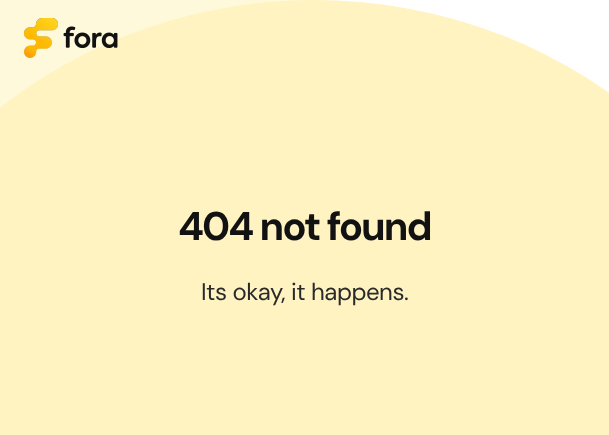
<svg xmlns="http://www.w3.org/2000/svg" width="609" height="435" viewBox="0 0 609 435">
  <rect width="100%" height="100%" fill="#fff"/>
  <rect x="-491" y="-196" width="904" height="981" rx="490.5" fill="#fff9db"/>
  <rect x="-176" width="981" height="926" rx="490.5" fill="#fff3c2"/>
  <image x="24" y="18" width="94" height="40" href="img/1.png"/>
  <text x="178" y="240" font-family="DM Sans" font-size="40" font-weight="bold" letter-spacing="-2" fill="#121212">404 not found</text>
  <text x="201" y="300" font-family="DM Sans" font-size="24" letter-spacing="-0.5" fill="#2a2a2a">Its okay, it happens.</text>
</svg>
